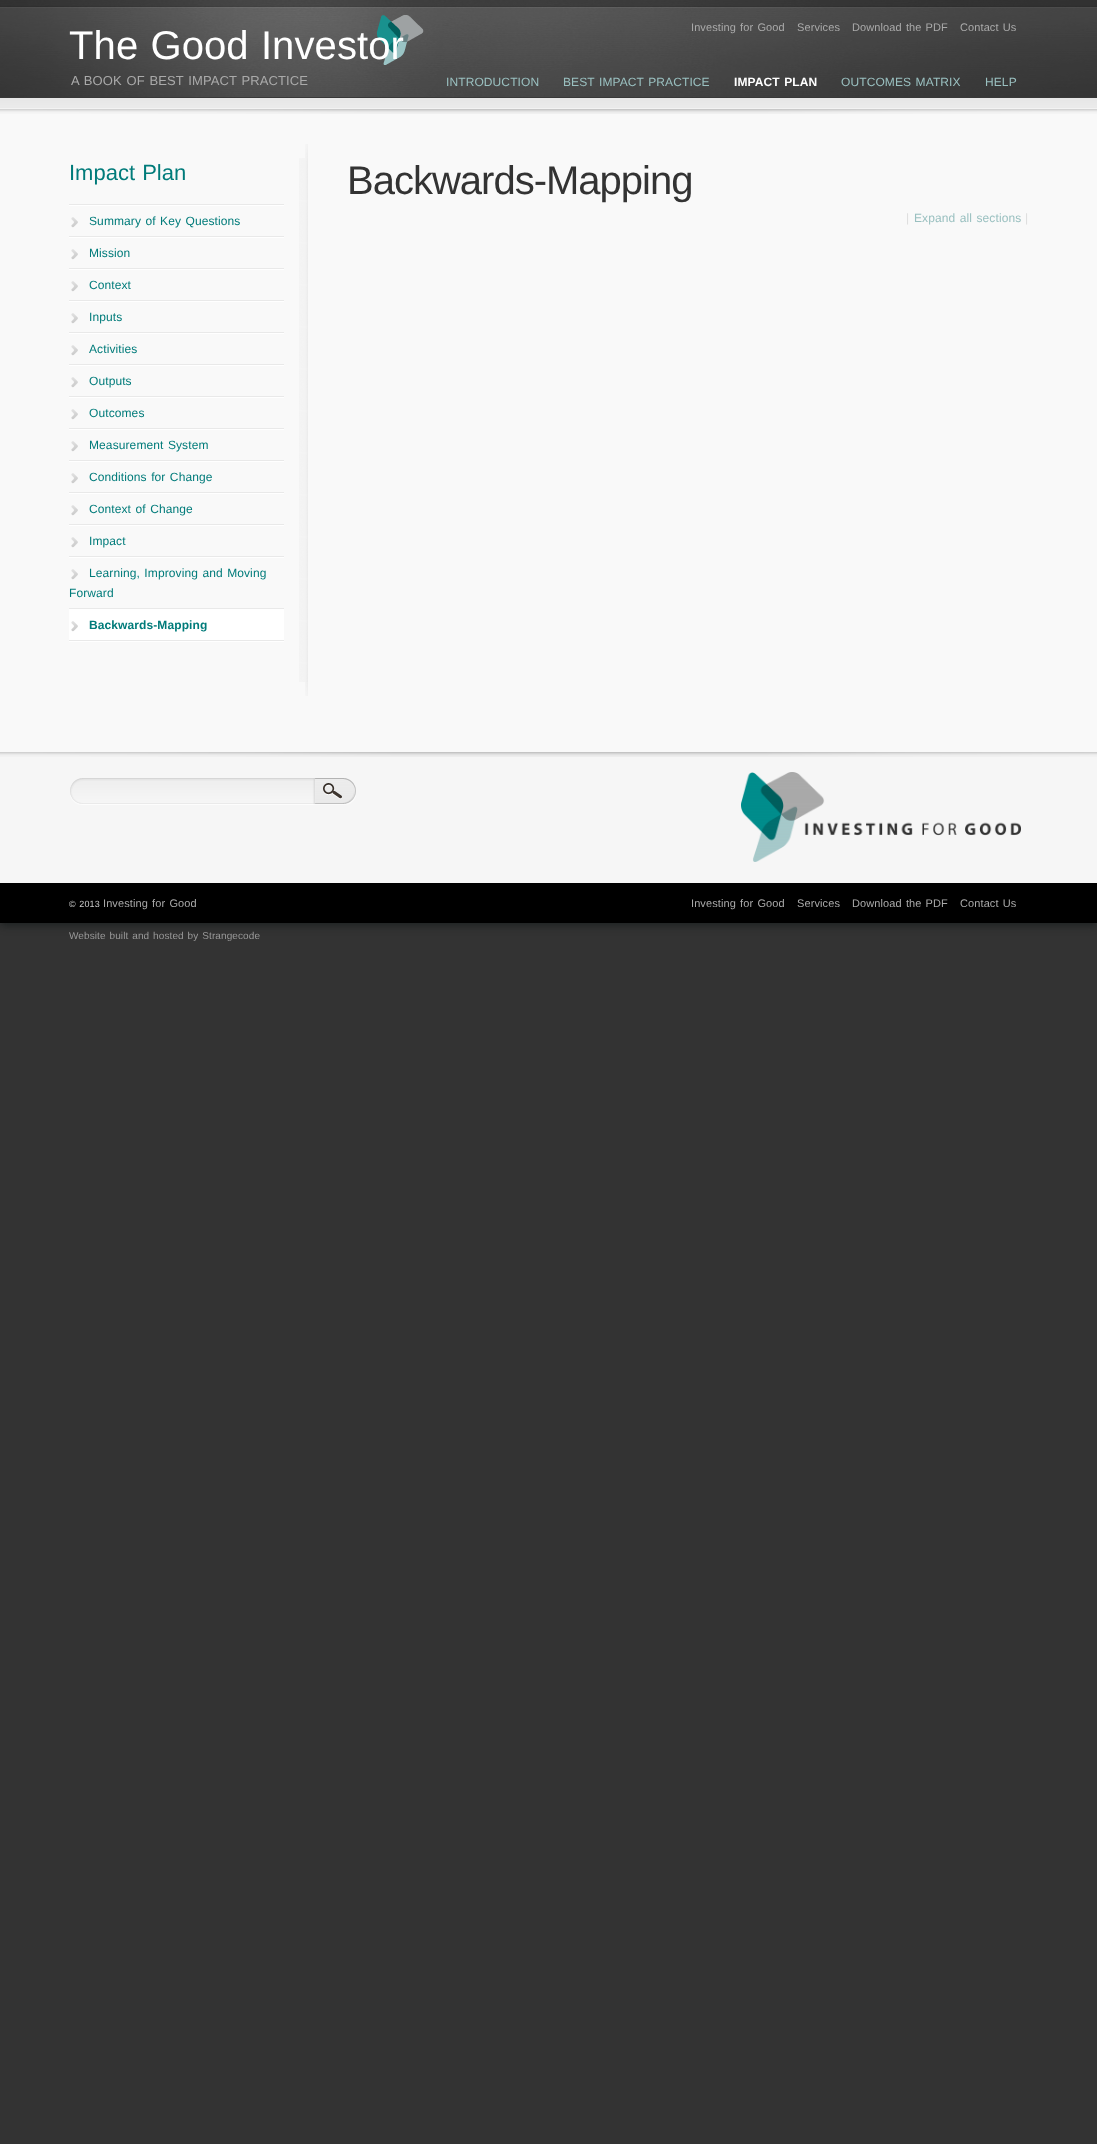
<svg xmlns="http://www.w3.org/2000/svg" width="1097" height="2144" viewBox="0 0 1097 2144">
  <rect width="100%" height="100%" fill="#333"/>
  <path d="M0 0h1097v98H0z" fill="#818181"/>
  <image x="0" y="0" width="1097" height="98" href="img/1.png"/>
  <image x="377" y="15" width="47" height="50" href="img/2.png"/>
  <path d="M0 109h1097v643H0z" fill="#f9f9f9"/>
  <image x="0" y="98" width="1097" height="16" href="img/3.png"/>
  <image x="305" y="144" width="3" height="14" href="img/4.png"/>
  <image x="299" y="158" width="9" height="524" href="img/5.png"/>
  <image x="69" y="204" width="215" height="2" href="img/6.png"/>
  <image x="69" y="236" width="215" height="2" href="img/6.png"/>
  <image x="71" y="217" width="7" height="11" href="img/7.png"/>
  <image x="69" y="268" width="215" height="2" href="img/6.png"/>
  <image x="71" y="249" width="7" height="11" href="img/7.png"/>
  <image x="69" y="300" width="215" height="2" href="img/6.png"/>
  <image x="71" y="281" width="7" height="11" href="img/7.png"/>
  <image x="69" y="332" width="215" height="2" href="img/6.png"/>
  <image x="71" y="313" width="7" height="11" href="img/7.png"/>
  <image x="69" y="364" width="215" height="2" href="img/6.png"/>
  <image x="71" y="345" width="7" height="11" href="img/7.png"/>
  <image x="69" y="396" width="215" height="2" href="img/6.png"/>
  <image x="71" y="377" width="7" height="11" href="img/8.png"/>
  <image x="69" y="428" width="215" height="2" href="img/6.png"/>
  <image x="71" y="409" width="7" height="11" href="img/7.png"/>
  <image x="69" y="460" width="215" height="2" href="img/6.png"/>
  <image x="71" y="441" width="7" height="11" href="img/7.png"/>
  <image x="69" y="492" width="215" height="2" href="img/6.png"/>
  <image x="71" y="473" width="7" height="11" href="img/7.png"/>
  <image x="69" y="524" width="215" height="2" href="img/6.png"/>
  <image x="71" y="505" width="7" height="11" href="img/7.png"/>
  <image x="69" y="556" width="215" height="2" href="img/6.png"/>
  <image x="71" y="537" width="7" height="11" href="img/9.png"/>
  <image x="69" y="608" width="215" height="2" href="img/6.png"/>
  <image x="71" y="569" width="7" height="11" href="img/7.png"/>
  <path d="M69 610h215v32H69z" fill="#fff"/>
  <path d="M69 640h215v1H69z" fill="#e9e9e9"/>
  <image x="71" y="621" width="7" height="11" href="img/10.png"/>
  <image x="305" y="682" width="3" height="14" href="img/11.png"/>
  <path d="M0 885h1097v40H0z" fill="#000a0a80" filter="blur(5px)"/>
  <path d="M0 752h1097v131H0z" fill="#f6f6f6"/>
  <image x="0" y="752" width="1097" height="5" href="img/12.png"/>
  <image x="70" y="778" width="286" height="27" href="img/13.png"/>
  <image x="315" y="778" width="41" height="26" href="img/14.png"/>
  <image x="741" y="772" width="280" height="90" href="img/15.png"/>
  <path d="M0 883h1097v40H0z" fill="#000"/>
  <g font-family="Liberation Sans" font-size="11" letter-spacing="0.1" fill="#aaa">
    <text x="691" y="31" word-spacing="1">Investing for Good</text>
    <text x="797" y="31">Services</text>
    <text x="852" y="31" word-spacing="1">Download the PDF</text>
    <text x="960" y="31" word-spacing="1">Contact Us</text>
  </g>
  <text x="69" y="59" word-spacing="1" font-family="Liberation Sans" font-size="40" letter-spacing="0.1" fill="#fff">The Good Investor</text>
  <text x="71" y="85" word-spacing="1" font-family="Liberation Sans" font-size="13" letter-spacing="0.1" fill="#aaa">A BOOK OF BEST IMPACT PRACTICE</text>
  <g font-family="Liberation Sans" font-size="12" letter-spacing="0.1" fill="#9ac0c0">
    <text x="446" y="86">INTRODUCTION</text>
    <text x="563" y="86" word-spacing="1">BEST IMPACT PRACTICE</text>
  </g>
  <text x="734" y="86" word-spacing="1" font-family="Liberation Sans" font-size="12" font-weight="bold" letter-spacing="0.1" fill="#fff">IMPACT PLAN</text>
  <g font-family="Liberation Sans" font-size="12" letter-spacing="0.1" fill="#9ac0c0">
    <text x="841" y="86" word-spacing="1">OUTCOMES MATRIX</text>
    <text x="985" y="86">HELP</text>
  </g>
  <text x="69" y="180" word-spacing="1" font-family="Liberation Sans" font-size="22" fill="#007b7a">Impact Plan</text>
  <g font-family="Liberation Sans" font-size="12" letter-spacing="0.1" fill="#007b7a">
    <text x="89" y="225" word-spacing="1">Summary of Key Questions</text>
    <text x="89" y="257">Mission</text>
    <text x="89" y="289">Context</text>
    <text x="89" y="321">Inputs</text>
    <text x="89" y="353">Activities</text>
    <text x="89" y="385">Outputs</text>
    <text x="89" y="417">Outcomes</text>
    <text x="89" y="449" word-spacing="1">Measurement System</text>
    <text x="89" y="481" word-spacing="1">Conditions for Change</text>
    <text x="89" y="513" word-spacing="1">Context of Change</text>
    <text x="89" y="545">Impact</text>
    <text x="89" y="577" word-spacing="1">Learning, Improving and Moving</text>
    <text x="69" y="597">Forward</text>
  </g>
  <text x="89" y="629" font-family="Liberation Sans" font-size="12" font-weight="bold" letter-spacing="0.1" fill="#007b7a">Backwards-Mapping</text>
  <text x="347" y="194" font-family="Liberation Sans" font-size="40" letter-spacing="-1" fill="#333">Backwards-Mapping</text>
  <text x="906" y="222" font-family="Liberation Sans" font-size="12" letter-spacing="0.1" fill="#ddd">|</text>
  <text x="914" y="222" word-spacing="1" font-family="Liberation Sans" font-size="12" letter-spacing="0.1" fill="#9ac0c0">Expand all sections</text>
  <text x="1025" y="222" font-family="Liberation Sans" font-size="12" letter-spacing="0.1" fill="#ddd">|</text>
  <text x="69" y="907" word-spacing="1" font-family="Liberation Sans" font-size="9" letter-spacing="0.1" fill="#ccc">© 2013</text>
  <g font-family="Liberation Sans" font-size="11" letter-spacing="0.1" fill="#aaa">
    <text x="103" y="907" word-spacing="1">Investing for Good</text>
    <text x="691" y="907" word-spacing="1">Investing for Good</text>
    <text x="797" y="907">Services</text>
    <text x="852" y="907" word-spacing="1">Download the PDF</text>
    <text x="960" y="907" word-spacing="1">Contact Us</text>
  </g>
  <text x="69" y="939" word-spacing="1" font-family="Liberation Sans" font-size="10" letter-spacing="0.1" fill="#999">Website built and hosted by Strangecode</text>
</svg>
